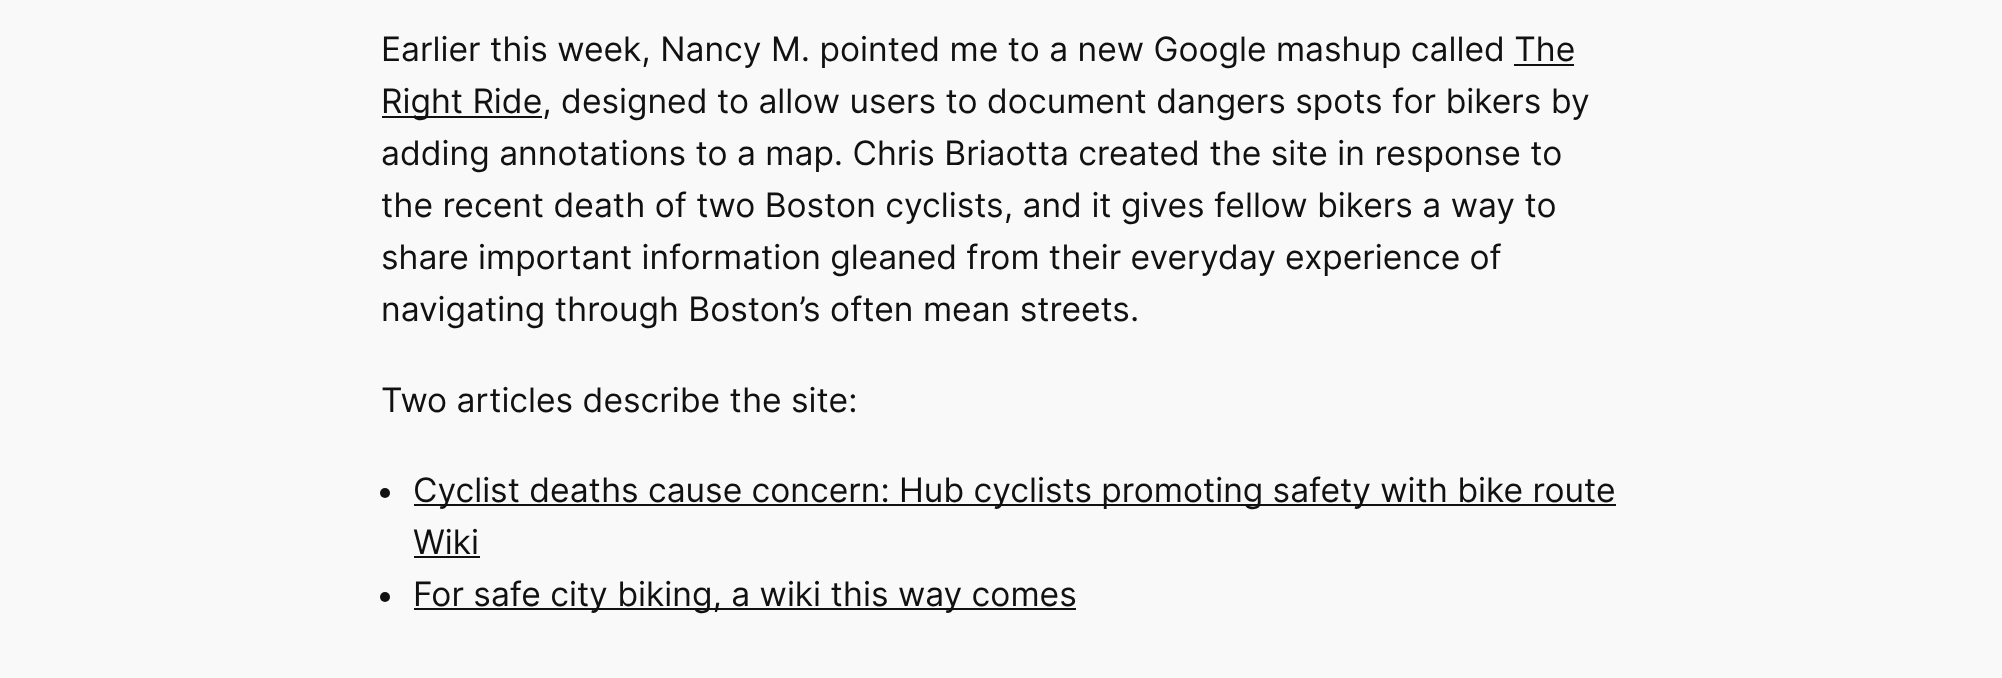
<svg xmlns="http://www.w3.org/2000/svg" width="2002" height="678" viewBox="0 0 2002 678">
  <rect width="100%" height="100%" fill="#f9f9f9"/>
  <path d="M1514 64h60v2H1514z" fill="#111"/>
  <path d="M382 116h160v2H382z" fill="#111"/>
  <circle cx="385" cy="493" r="5" fill="#111"/>
  <path d="M414 504h1202v2H414z" fill="#111"/>
  <path d="M414 556h66v2H414z" fill="#111"/>
  <circle cx="385" cy="597" r="5" fill="#111"/>
  <path d="M414 608h662v2H414z" fill="#111"/>
  <g font-family="Inter" font-size="33.6" fill="#111">
    <text x="381" y="61">Earlier this week, Nancy M. pointed me to a new Google mashup called The</text>
    <text x="381" y="113">Right Ride, designed to allow users to document dangers spots for bikers by</text>
    <text x="381" y="165">adding annotations to a map. Chris Briaotta created the site in response to</text>
    <text x="381" y="217">the recent death of two Boston cyclists, and it gives fellow bikers a way to</text>
    <text x="381" y="269" word-spacing="-0.25">share important information gleaned from their everyday experience of</text>
    <text x="381" y="321">navigating through Boston’s often mean streets.</text>
    <text x="381" y="412">Two articles describe the site:</text>
    <text x="413" y="502" word-spacing="-0.1">Cyclist deaths cause concern: Hub cyclists promoting safety with bike route</text>
    <text x="413" y="554">Wiki</text>
    <text x="413" y="606">For safe city biking, a wiki this way comes</text>
  </g>
</svg>
